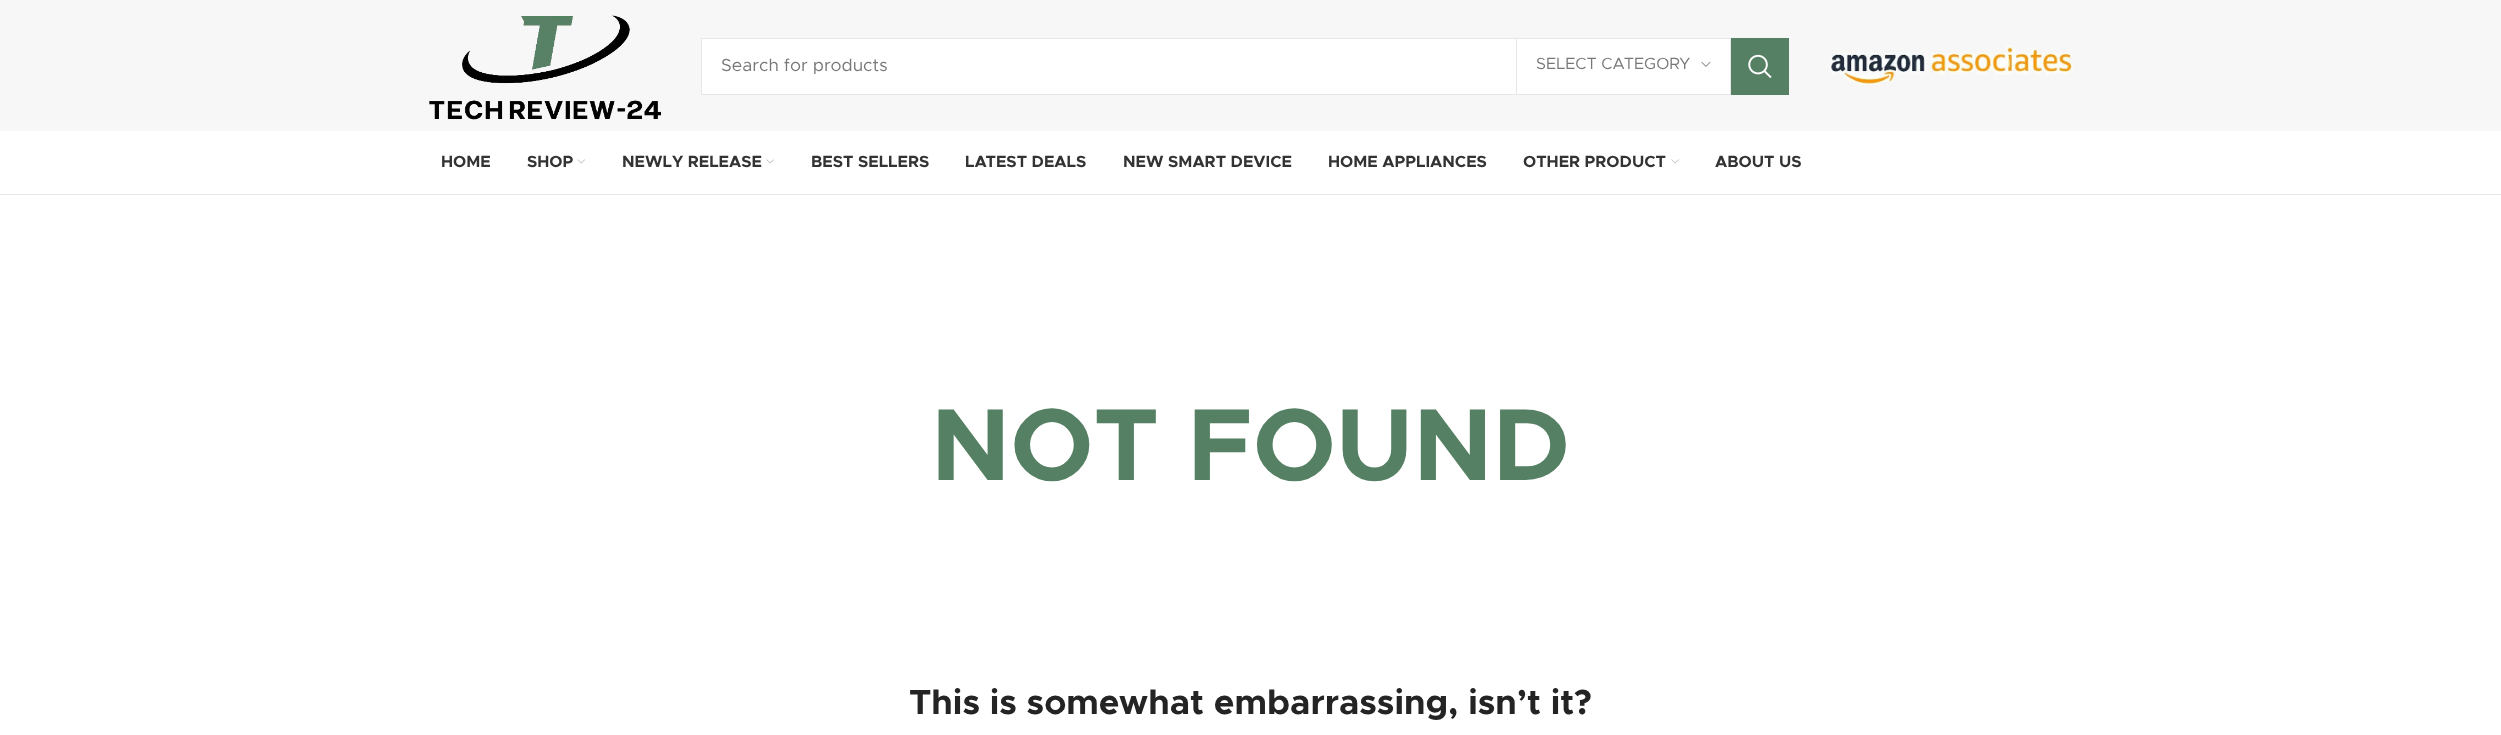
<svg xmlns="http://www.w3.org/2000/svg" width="2501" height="735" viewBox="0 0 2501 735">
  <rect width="100%" height="100%" fill="#fff"/>
  <path d="M0 0h2501v131H0z" fill="#f7f7f7"/>
  <image x="429" y="15" width="233" height="105" href="img/1.png"/>
  <path d="M702 39h1028v55H702z" fill="#fff"/>
  <path d="M701.5 38.5h1087v56H701.5z" fill="none" stroke="#e6e6e6"/>
  <path d="M1730 39h1v55H1730z" fill="#e6e6e6"/>
  <path d="M1516 39h1v55H1516z" fill="#e6e6e6"/>
  <image x="1701" y="61" width="10" height="6" href="img/2.png"/>
  <path d="M1731 38h58v57H1731z" fill="#558063"/>
  <image x="1748" y="54" width="24" height="25" href="img/3.png"/>
  <image x="1830" y="45" width="243" height="40" href="img/4.png"/>
  <path d="M0 194h2501v1H0z" fill="#e6e6e6"/>
  <image x="577" y="159" width="8" height="5" href="img/5.png"/>
  <image x="766" y="159" width="8" height="5" href="img/6.png"/>
  <image x="1671" y="159" width="8" height="5" href="img/6.png"/>
  <text x="721" y="71" font-family="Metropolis" font-size="17.5" fill="#777">Search for products</text>
  <text x="1536" y="69" font-family="Metropolis" font-size="16.25" fill="#777">SELECT CATEGORY</text>
  <g font-family="Metropolis" font-size="16.25" font-weight="bold" fill="#333">
    <text x="441" y="167">HOME</text>
    <text x="527" y="167">SHOP</text>
    <text x="622" y="167">NEWLY RELEASE</text>
    <text x="811" y="167">BEST SELLERS</text>
    <text x="965" y="167">LATEST DEALS</text>
    <text x="1123" y="167">NEW SMART DEVICE</text>
    <text x="1328" y="167">HOME APPLIANCES</text>
    <text x="1523" y="167">OTHER PRODUCT</text>
    <text x="1715" y="167">ABOUT US</text>
  </g>
  <text x="931" y="480" font-family="Metropolis" font-size="102.5" font-weight="bold" fill="#558063">NOT FOUND</text>
  <text x="909" y="714" font-family="Metropolis" font-size="35" font-weight="bold" fill="#242424">This is somewhat embarrassing, isn’t it?</text>
</svg>
